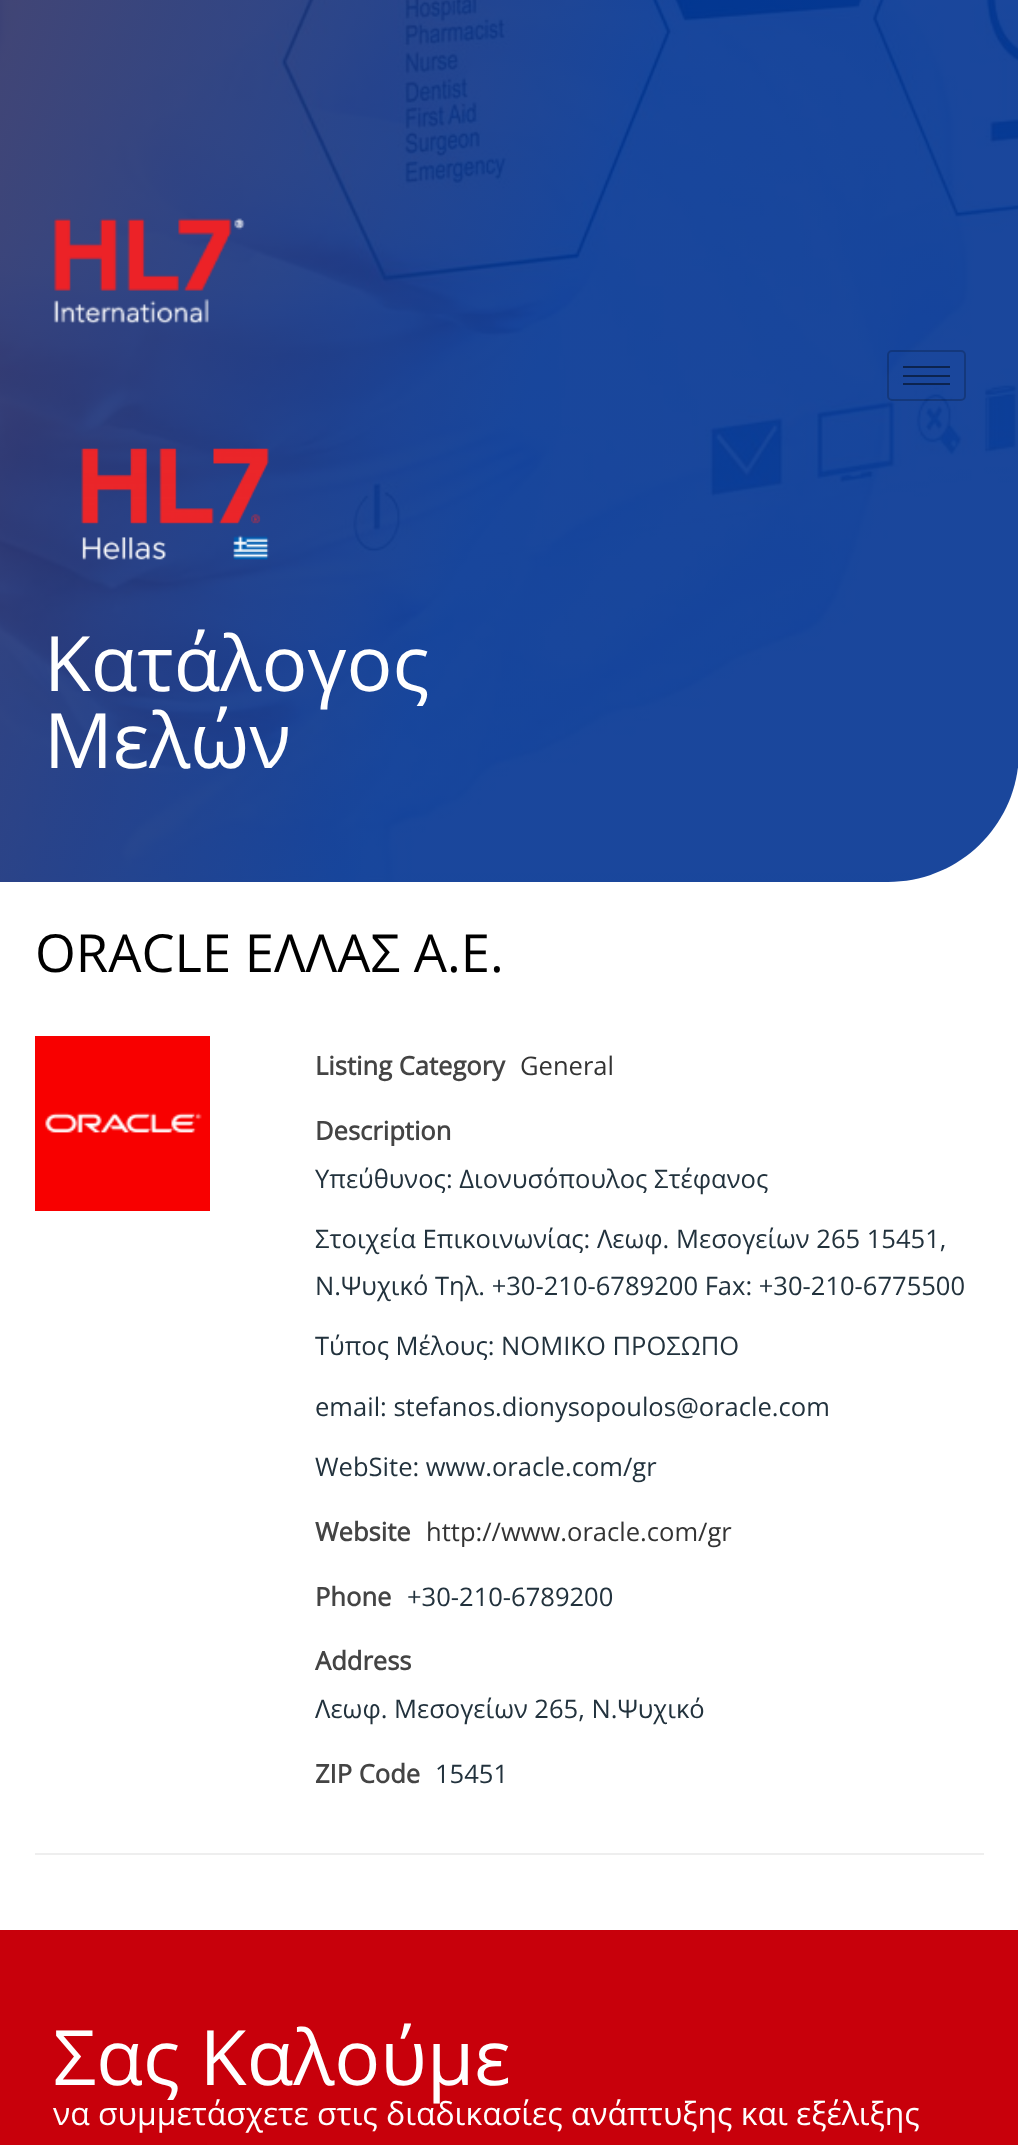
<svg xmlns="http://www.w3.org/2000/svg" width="1018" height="2145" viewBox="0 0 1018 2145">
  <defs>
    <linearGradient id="g1" gradientUnits="userSpaceOnUse" x1="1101" y1="656" x2="-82" y2="226"><stop offset="0.5" stop-color="#003291" stop-opacity="0.9"/><stop offset="1" stop-color="#2e3166" stop-opacity="0.9"/></linearGradient>
  </defs>
  <rect width="100%" height="100%" fill="#fff"/>
  <image x="0" y="0" width="1018" height="882" href="img/1.png"/>
  <path d="M0 0H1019V751C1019 823.5 960.5 882 888 882H0Z" fill="url(#g1)"/>
  <image x="53" y="218" width="192" height="106" href="img/2.png"/>
  <rect x="888" y="351" width="77" height="49" rx="4" fill="none" stroke="#00000033" stroke-width="2"/>
  <path d="M903 366h47v2H903z" fill="#0c234e"/>
  <path d="M903 375h47v2H903z" fill="#0c234e"/>
  <path d="M903 383h47v2H903z" fill="#0c234e"/>
  <image x="81" y="448" width="188" height="112" href="img/3.png"/>
  <image x="35" y="1036" width="175" height="175" href="img/4.png"/>
  <path d="M35 1853h949v2H35z" fill="#eee"/>
  <path d="M0 1930h1018v215H0z" fill="#c8000b"/>
  <g font-family="Open Sans" font-size="76.5" fill="#fff">
    <text x="44" y="691">Κατάλογος</text>
    <text x="44" y="768">Μελών</text>
  </g>
  <text x="35" y="972" font-family="Open Sans" font-size="52.5" fill="#000">ORACLE ΕΛΛΑΣ Α.Ε.</text>
  <text x="315" y="1075" font-family="Open Sans" font-size="25.55" font-weight="bold" fill="#444">Listing Category</text>
  <text x="520" y="1075" font-family="Open Sans" font-size="25.55" fill="#333">General</text>
  <text x="315" y="1140" font-family="Open Sans" font-size="25.55" font-weight="bold" fill="#444">Description</text>
  <g font-family="Open Sans" font-size="25.55" fill="#22323d">
    <text x="315" y="1188">Υπεύθυνος: Διονυσόπουλος Στέφανος</text>
    <text x="315" y="1248">Στοιχεία Επικοινωνίας: Λεωφ. Μεσογείων 265 15451,</text>
    <text x="315" y="1295">Ν.Ψυχικό Τηλ. +30-210-6789200 Fax: +30-210-6775500</text>
    <text x="315" y="1355">Τύπος Μέλους: ΝΟΜΙΚΟ ΠΡΟΣΩΠΟ</text>
    <text x="315" y="1416">email: stefanos.dionysopoulos@oracle.com</text>
    <text x="315" y="1476">WebSite: www.oracle.com/gr</text>
  </g>
  <text x="315" y="1541" font-family="Open Sans" font-size="25.55" font-weight="bold" fill="#444">Website</text>
  <text x="426" y="1541" font-family="Open Sans" font-size="25.55" fill="#333">http://www.oracle.com/gr</text>
  <text x="315" y="1606" font-family="Open Sans" font-size="25.55" font-weight="bold" fill="#444">Phone</text>
  <text x="407" y="1606" font-family="Open Sans" font-size="25.55" fill="#22323d">+30-210-6789200</text>
  <text x="315" y="1670" font-family="Open Sans" font-size="25.55" font-weight="bold" fill="#444">Address</text>
  <text x="315" y="1718" font-family="Open Sans" font-size="25.55" fill="#22323d">Λεωφ. Μεσογείων 265, Ν.Ψυχικό</text>
  <text x="315" y="1783" font-family="Open Sans" font-size="25.55" font-weight="bold" fill="#444">ZIP Code</text>
  <text x="435" y="1783" font-family="Open Sans" font-size="25.55" fill="#22323d">15451</text>
  <text x="53" y="2085" font-family="Open Sans" font-size="76.5" fill="#fff">Σας Καλούμε</text>
  <text x="53" y="2125" font-family="Open Sans" font-size="31.9" fill="#fff">να συμμετάσχετε στις διαδικασίες ανάπτυξης και εξέλιξης</text>
</svg>
